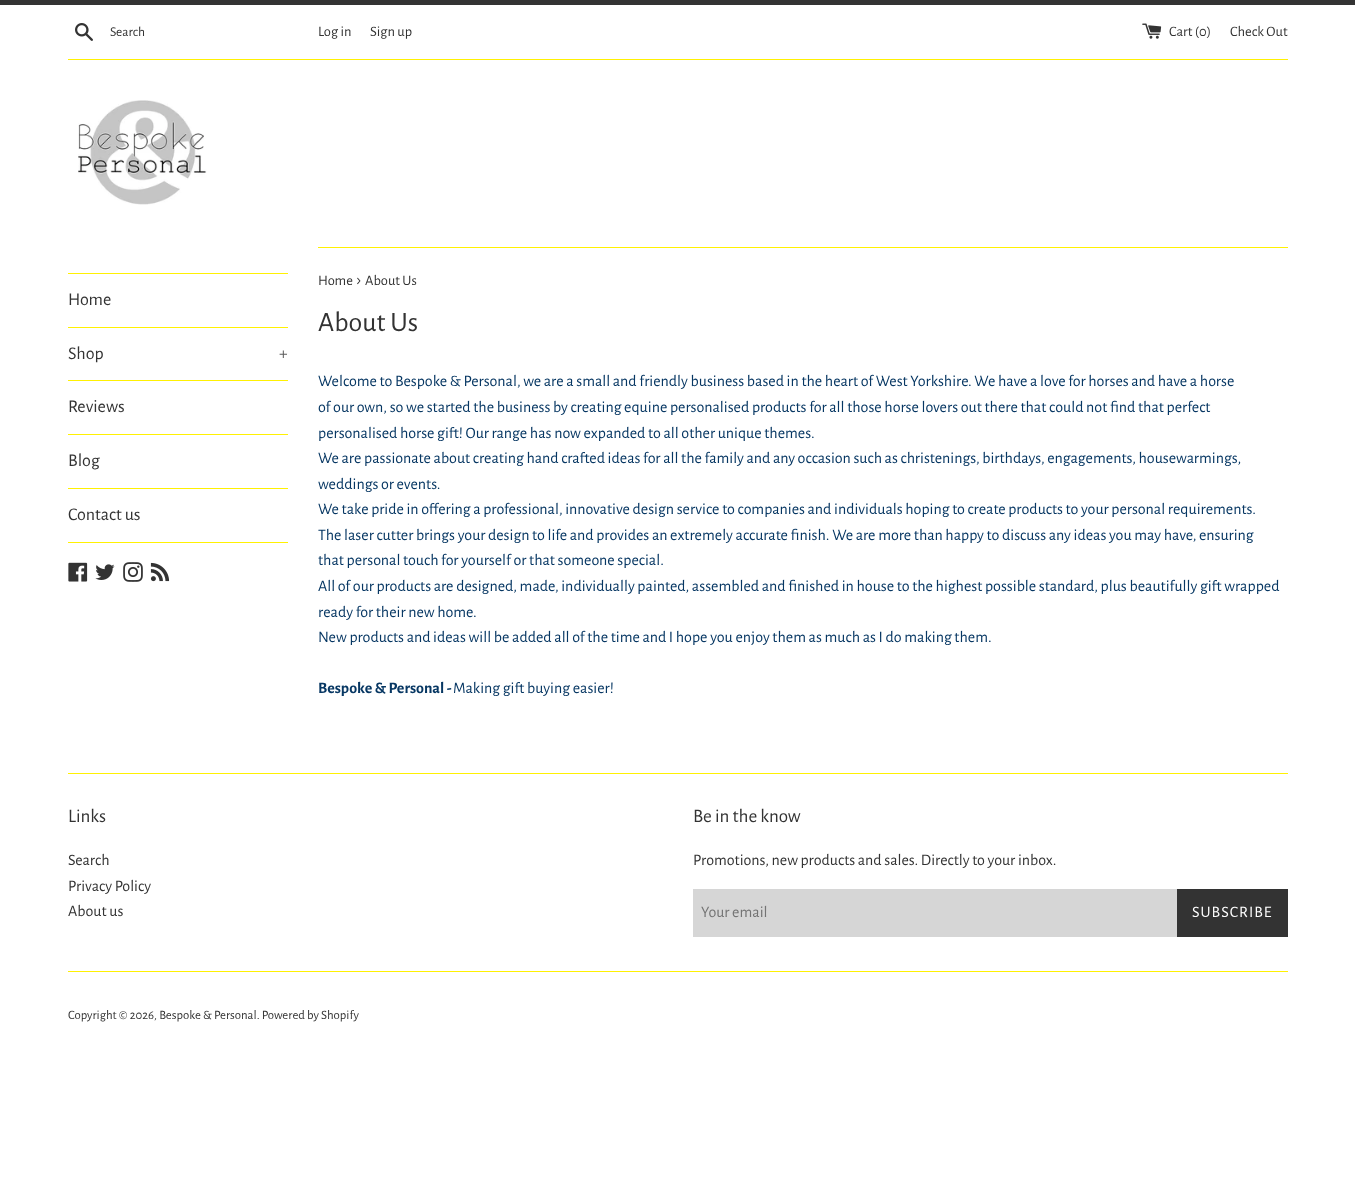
<svg xmlns="http://www.w3.org/2000/svg" width="1355" height="1203" viewBox="0 0 1355 1203">
  <rect width="100%" height="100%" fill="#fff"/>
  <path d="M0 0h1355v5H0z" fill="#333"/>
  <image x="75" y="23" width="18" height="18" href="img/1.png"/>
  <image x="1142" y="23" width="20" height="16" href="img/2.png"/>
  <path d="M68 59h1220v1H68z" fill="#fff102"/>
  <image x="78" y="100" width="129" height="105" href="img/3.png"/>
  <path d="M68 273h220v1H68z" fill="#fff102"/>
  <path d="M68 327h220v1H68z" fill="#fff102"/>
  <path d="M68 380h220v1H68z" fill="#fff102"/>
  <path d="M68 434h220v1H68z" fill="#fff102"/>
  <path d="M68 488h220v1H68z" fill="#fff102"/>
  <path d="M68 542h220v1H68z" fill="#fff102"/>
  <image x="68" y="562" width="20" height="20" href="img/4.png"/>
  <image x="95" y="564" width="20" height="16" href="img/5.png"/>
  <image x="123" y="562" width="20" height="20" href="img/6.png"/>
  <image x="150" y="562" width="20" height="20" href="img/7.png"/>
  <path d="M318 247h970v1H318z" fill="#fff102"/>
  <path d="M68 773h1220v1H68z" fill="#fff102"/>
  <path d="M693 889h484v48H693z" fill="#d6d6d6"/>
  <path d="M1177 889h111v48H1177z" fill="#333"/>
  <path d="M68 971h1220v1H68z" fill="#fff102"/>
  <text x="110" y="36" font-family="Alegreya Sans" font-size="13.5" fill="#333">Search</text>
  <g font-family="Alegreya Sans" font-size="14.5" fill="#333">
    <text x="318" y="36">Log in</text>
    <text x="370" y="36">Sign up</text>
    <text x="1169" y="36">Cart (0)</text>
    <text x="1230" y="36">Check Out</text>
  </g>
  <g font-family="Alegreya Sans" font-size="18" fill="#333">
    <text x="68" y="305">Home</text>
    <text x="68" y="359">Shop</text>
  </g>
  <text x="279" y="359" font-family="Alegreya Sans" font-size="18" fill="#5c5c5c">+</text>
  <g font-family="Alegreya Sans" font-size="18" fill="#333">
    <text x="68" y="412">Reviews</text>
    <text x="68" y="466">Blog</text>
    <text x="68" y="520">Contact us</text>
  </g>
  <text x="318" y="285" font-family="Alegreya Sans" font-size="14.5" fill="#333">Home</text>
  <text x="357" y="285" font-family="Alegreya Sans" font-size="18" fill="#333">›</text>
  <text x="365" y="285" font-family="Alegreya Sans" font-size="14.5" fill="#333">About Us</text>
  <text x="318" y="331" font-family="Alegreya Sans" font-size="28" fill="#333">About Us</text>
  <g font-family="Alegreya Sans" font-size="16" fill="#073763">
    <text x="318" y="386">Welcome to Bespoke &amp; Personal, we are a small and friendly business based in the heart of West Yorkshire. We have a love for horses and have a horse</text>
    <text x="318" y="412">of our own, so we started the business by creating equine personalised products for all those horse lovers out there that could not find that perfect</text>
    <text x="318" y="438">personalised horse gift! Our range has now expanded to all other unique themes.</text>
    <text x="318" y="463">We are passionate about creating hand crafted ideas for all the family and any occasion such as christenings, birthdays, engagements, housewarmings,</text>
    <text x="318" y="489">weddings or events.</text>
    <text x="318" y="514">We take pride in offering a professional, innovative design service to companies and individuals hoping to create products to your personal requirements.</text>
    <text x="318" y="540">The laser cutter brings your design to life and provides an extremely accurate finish. We are more than happy to discuss any ideas you may have, ensuring</text>
    <text x="318" y="565">that personal touch for yourself or that someone special.</text>
    <text x="318" y="591">All of our products are designed, made, individually painted, assembled and finished in house to the highest possible standard, plus beautifully gift wrapped</text>
    <text x="318" y="617">ready for their new home.</text>
    <text x="318" y="642">New products and ideas will be added all of the time and I hope you enjoy them as much as I do making them.</text>
  </g>
  <text x="318" y="693" font-family="Alegreya Sans" font-size="16" font-weight="bold" fill="#073763">Bespoke &amp; Personal -</text>
  <text x="453" y="693" font-family="Alegreya Sans" font-size="16" fill="#073763">Making gift buying easier!</text>
  <text x="68" y="822" font-family="Alegreya Sans" font-size="19" fill="#333">Links</text>
  <g font-family="Alegreya Sans" font-size="16" fill="#333">
    <text x="68" y="865">Search</text>
    <text x="68" y="891">Privacy Policy</text>
    <text x="68" y="916">About us</text>
  </g>
  <text x="693" y="822" font-family="Alegreya Sans" font-size="19" fill="#333">Be in the know</text>
  <text x="693" y="865" font-family="Alegreya Sans" font-size="16" fill="#333">Promotions, new products and sales. Directly to your inbox.</text>
  <text x="701" y="917" font-family="Alegreya Sans" font-size="16" fill="#747474">Your email</text>
  <text x="1192" y="917" font-family="Alegreya Sans" font-size="16" letter-spacing="1" fill="#fff">SUBSCRIBE</text>
  <text x="68" y="1019" font-family="Alegreya Sans" font-size="12.8" fill="#333">Copyright © 2026, Bespoke &amp; Personal. Powered by Shopify</text>
</svg>
